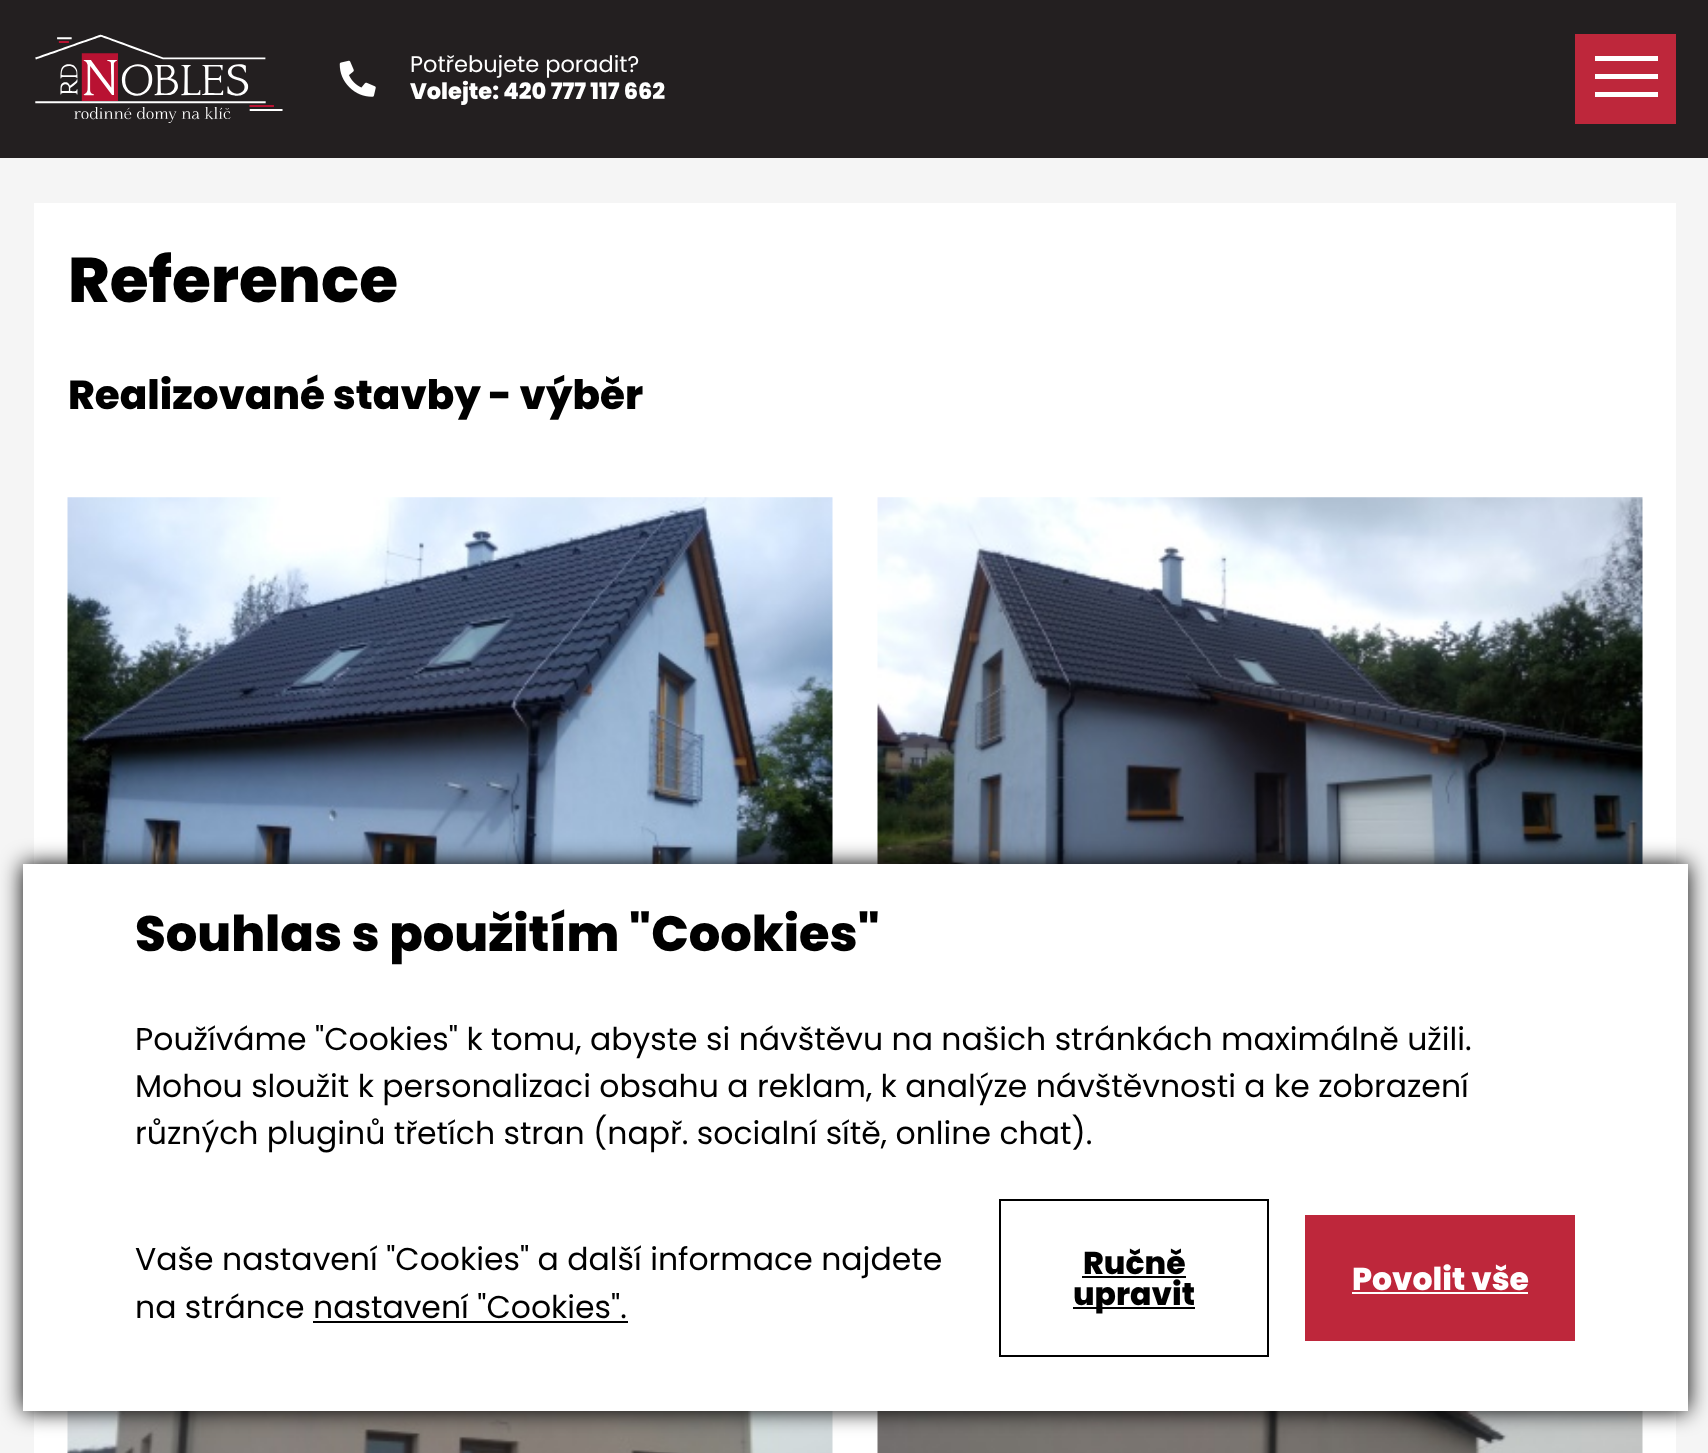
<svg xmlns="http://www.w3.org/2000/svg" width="1708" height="1453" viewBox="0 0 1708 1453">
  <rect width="100%" height="100%" fill="#f5f5f5"/>
  <path d="M0 0h1708v158H0z" fill="#231f20"/>
  <image x="35" y="34" width="248" height="89" href="img/1.png"/>
  <image x="339" y="60" width="37" height="37" href="img/2.png"/>
  <path d="M1575 34h101v90H1575z" fill="#be273b"/>
  <path d="M1595 56h63v5H1595z" fill="#fff"/>
  <path d="M1595 74h63v5H1595z" fill="#fff"/>
  <path d="M1595 92h63v5H1595z" fill="#fff"/>
  <path d="M34 203h1642v1250H34z" fill="#fff"/>
  <image x="67" y="497" width="766" height="367" href="img/3.png"/>
  <image x="877" y="497" width="766" height="367" href="img/4.png"/>
  <image x="67" y="1411" width="766" height="42" href="img/5.png"/>
  <image x="877" y="1411" width="766" height="42" href="img/6.png"/>
  <path d="M23 864h1665v547H23z" fill="#000" filter="blur(11px)"/>
  <path d="M23 864h1665v547H23z" fill="#fff"/>
  <path d="M313 1321h315v2H313z" fill="#000"/>
  <path d="M1000 1200h268v156H1000z" fill="none" stroke="#000" stroke-width="2"/>
  <path d="M1082 1276h104v2H1082z" fill="#000"/>
  <path d="M1073 1307h122v2H1073z" fill="#000"/>
  <path d="M1305 1215h270v126H1305z" fill="#be273b"/>
  <path d="M1352 1292h176v2H1352z" fill="#fff"/>
  <text x="410" y="72" font-family="Poppins" font-size="22.5" fill="#fff">Potřebujete poradit?</text>
  <text x="410" y="99" font-family="Poppins" font-size="22.5" font-weight="800" fill="#fff">Volejte: 420 777 117 662</text>
  <text x="68" y="302" font-family="Poppins" font-size="63" font-weight="800" fill="#000">Reference</text>
  <text x="68" y="409" font-family="Poppins" font-size="40.5" font-weight="800" fill="#000">Realizované stavby - výběr</text>
  <text x="135" y="951" font-family="Poppins" font-size="49.5" font-weight="800" fill="#000">Souhlas s použitím "Cookies"</text>
  <g font-family="Poppins" font-size="31.5" fill="#000">
    <text x="135" y="1050">Používáme "Cookies" k tomu, abyste si návštěvu na našich stránkách maximálně užili.</text>
    <text x="135" y="1097">Mohou sloužit k personalizaci obsahu a reklam, k analýze návštěvnosti a ke zobrazení</text>
    <text x="135" y="1144">různých pluginů třetích stran (např. socialní sítě, online chat).</text>
    <text x="135" y="1270">Vaše nastavení "Cookies" a další informace najdete</text>
    <text x="135" y="1318">na stránce nastavení "Cookies".</text>
  </g>
  <g font-family="Poppins" font-size="31.5" font-weight="800" fill="#000">
    <text x="1083" y="1274">Ručně</text>
    <text x="1073" y="1305">upravit</text>
  </g>
  <text x="1352" y="1290" font-family="Poppins" font-size="31.5" font-weight="800" fill="#fff">Povolit vše</text>
</svg>
